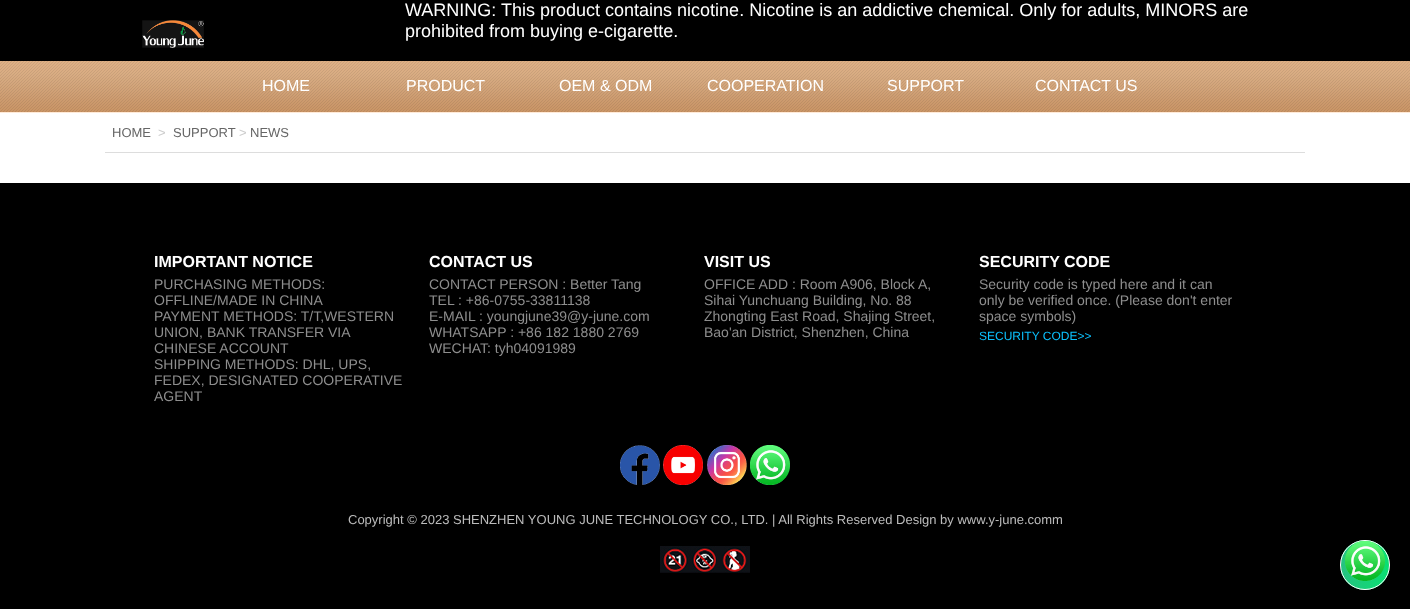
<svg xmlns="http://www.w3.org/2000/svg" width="1410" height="610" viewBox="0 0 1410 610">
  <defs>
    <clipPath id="clip1"><rect x="1340" y="540" width="50" height="50" rx="25"/></clipPath>
    <linearGradient id="g1" gradientUnits="userSpaceOnUse" x1="1341" y1="565" x2="1389" y2="565"><stop offset="0" stop-color="#26c281"/><stop offset="1" stop-color="#09e072"/></linearGradient>
  </defs>
  <rect width="100%" height="100%" fill="#fff"/>
  <path d="M0 0h1410v61H0z" fill="#000"/>
  <image x="142" y="20" width="62" height="28" href="img/1.png"/>
  <image x="0" y="61" width="1410" height="52" href="img/2.png"/>
  <path d="M105 152h1200v1H105z" fill="#ddd"/>
  <path d="M0 183h1410v426H0z" fill="#000"/>
  <image x="620" y="445" width="40" height="40" href="img/3.png"/>
  <image x="663" y="445" width="40" height="40" href="img/4.png"/>
  <image x="707" y="445" width="40" height="40" href="img/5.png"/>
  <image x="750" y="445" width="40" height="40" href="img/6.png"/>
  <image x="660" y="546" width="90" height="27" href="img/7.png"/>
  <g clip-path="url(#clip1)">
    <path d="M1341 540h48v50H1341z" fill="url(#g1)"/>
  </g>
  <circle cx="1365" cy="565" r="24.5" fill="none" stroke="#fff"/>
  <image x="1345" y="541" width="40" height="40" href="img/8.png"/>
  <g font-family="Liberation Sans" font-size="18" fill="#fff">
    <text x="405" y="16">WARNING: This product contains nicotine. Nicotine is an addictive chemical. Only for adults, MINORS are</text>
    <text x="405" y="37">prohibited from buying e-cigarette.</text>
  </g>
  <g font-family="Liberation Sans" font-size="16" fill="#fff">
    <text x="262" y="91">HOME</text>
    <text x="406" y="91">PRODUCT</text>
    <text x="559" y="91">OEM &amp; ODM</text>
    <text x="707" y="91">COOPERATION</text>
    <text x="887" y="91">SUPPORT</text>
    <text x="1035" y="91">CONTACT US</text>
  </g>
  <text x="112" y="137" font-family="Liberation Sans" font-size="13" fill="#666">HOME</text>
  <text x="158" y="137" font-family="Liberation Sans" font-size="13" fill="#ccc">&gt;</text>
  <text x="173" y="137" font-family="Liberation Sans" font-size="13" fill="#666">SUPPORT</text>
  <text x="239" y="137" font-family="Liberation Sans" font-size="13" fill="#ccc">&gt;</text>
  <text x="250" y="137" font-family="Liberation Sans" font-size="13" fill="#666">NEWS</text>
  <text x="154" y="267" font-family="Liberation Sans" font-size="16" font-weight="bold" fill="#fff">IMPORTANT NOTICE</text>
  <g font-family="Liberation Sans" font-size="14" fill="#8e8e8e">
    <text x="154" y="289">PURCHASING METHODS:</text>
    <text x="154" y="305">OFFLINE/MADE IN CHINA</text>
    <text x="154" y="321">PAYMENT METHODS: T/T,WESTERN</text>
    <text x="154" y="337">UNION, BANK TRANSFER VIA</text>
    <text x="154" y="353">CHINESE ACCOUNT</text>
    <text x="154" y="369">SHIPPING METHODS: DHL, UPS,</text>
    <text x="154" y="385">FEDEX, DESIGNATED COOPERATIVE</text>
    <text x="154" y="401">AGENT</text>
  </g>
  <text x="429" y="267" font-family="Liberation Sans" font-size="16" font-weight="bold" fill="#fff">CONTACT US</text>
  <g font-family="Liberation Sans" font-size="14" fill="#8e8e8e">
    <text x="429" y="289">CONTACT PERSON : Better Tang</text>
    <text x="429" y="305">TEL : +86-0755-33811138</text>
    <text x="429" y="321">E-MAIL : youngjune39@y-june.com</text>
    <text x="429" y="337">WHATSAPP : +86 182 1880 2769</text>
    <text x="429" y="353">WECHAT: tyh04091989</text>
  </g>
  <text x="704" y="267" font-family="Liberation Sans" font-size="16" font-weight="bold" fill="#fff">VISIT US</text>
  <g font-family="Liberation Sans" font-size="14" fill="#8e8e8e">
    <text x="704" y="289">OFFICE ADD : Room A906, Block A,</text>
    <text x="704" y="305">Sihai Yunchuang Building, No. 88</text>
    <text x="704" y="321">Zhongting East Road, Shajing Street,</text>
    <text x="704" y="337">Bao'an District, Shenzhen, China</text>
  </g>
  <text x="979" y="267" font-family="Liberation Sans" font-size="16" font-weight="bold" fill="#fff">SECURITY CODE</text>
  <g font-family="Liberation Sans" font-size="14" fill="#8e8e8e">
    <text x="979" y="289">Security code is typed here and it can</text>
    <text x="979" y="305">only be verified once. (Please don't enter</text>
    <text x="979" y="321">space symbols)</text>
  </g>
  <text x="979" y="340" font-family="Liberation Sans" font-size="12" fill="#0bc2ff">SECURITY CODE&gt;&gt;</text>
  <text x="348" y="524" font-family="Liberation Sans" font-size="13" fill="#bcbcbc">Copyright © 2023 SHENZHEN YOUNG JUNE TECHNOLOGY CO., LTD. | All Rights Reserved Design by www.y-june.comm</text>
</svg>
